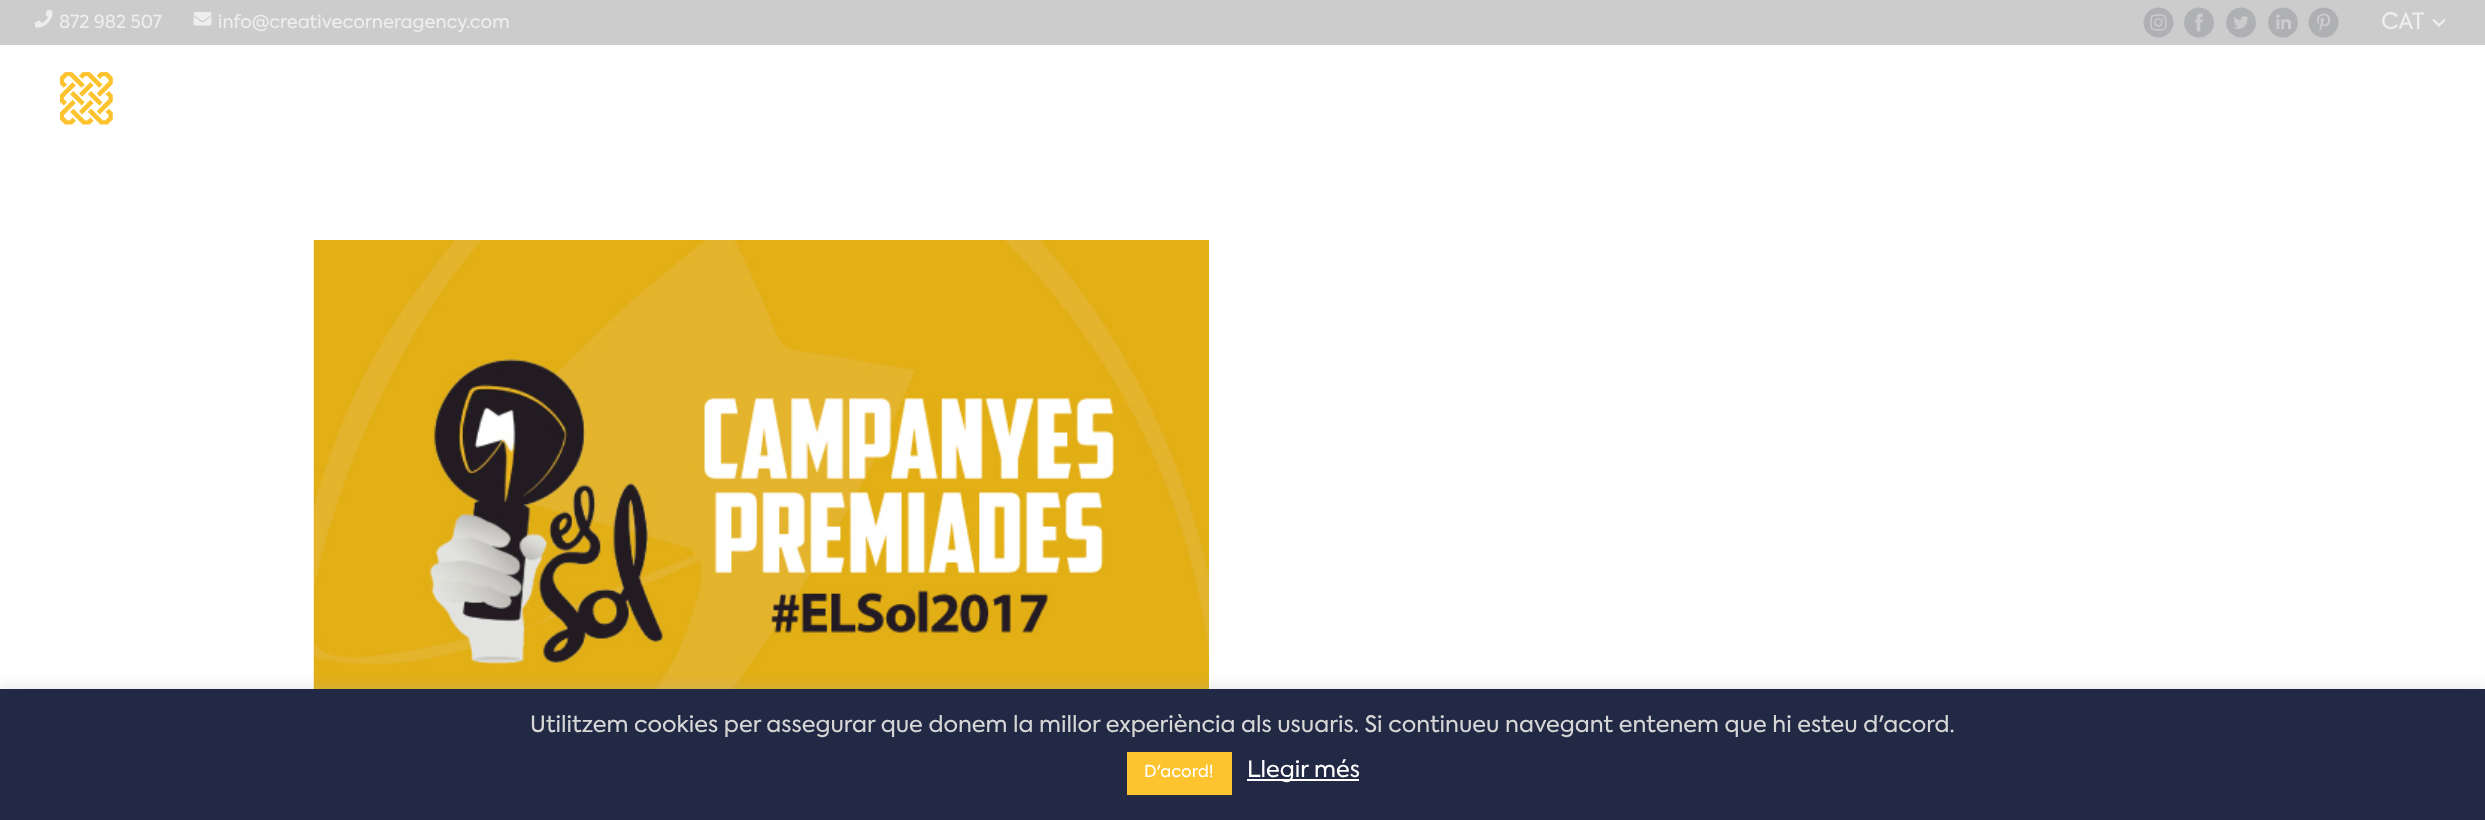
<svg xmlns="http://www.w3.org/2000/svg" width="2485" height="820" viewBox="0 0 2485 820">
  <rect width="100%" height="100%" fill="#fff"/>
  <path d="M0 0h2485v45H0z" fill="#ccc"/>
  <image x="34" y="9" width="19" height="19" href="img/1.png"/>
  <image x="193" y="12" width="19" height="14" href="img/2.png"/>
  <image x="2143" y="7" width="31" height="31" href="img/3.png"/>
  <image x="2184" y="7" width="30" height="31" href="img/4.png"/>
  <image x="2226" y="7" width="30" height="31" href="img/5.png"/>
  <image x="2268" y="7" width="30" height="31" href="img/6.png"/>
  <image x="2308" y="7" width="31" height="31" href="img/7.png"/>
  <image x="2432" y="19" width="14" height="8" href="img/8.png"/>
  <image x="60" y="71" width="53" height="54" href="img/9.png"/>
  <image x="313" y="240" width="896" height="449" href="img/10.png"/>
  <path d="M0 687h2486v132H0z" fill="#acabab4d" filter="blur(7.5px)"/>
  <path d="M0 689h2485v131H0z" fill="#222945"/>
  <path d="M1127 752h105v43H1127z" fill="#fdc42f"/>
  <path d="M1247 779h112v2H1247z" fill="#fff"/>
  <g font-family="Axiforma" font-size="18" fill="#eee">
    <text x="59" y="28">872 982 507</text>
    <text x="218" y="28">info@creativecorneragency.com</text>
  </g>
  <text x="2381" y="29" font-family="Axiforma" font-size="22.5" fill="#eee">CAT</text>
  <text x="530" y="732" font-family="Axiforma" font-size="22.5" fill="#d6d6d6">Utilitzem cookies per assegurar que donem la millor experiència als usuaris. Si continueu navegant entenem que hi esteu d'acord.</text>
  <text x="1144" y="777" font-family="Axiforma" font-size="16.5" fill="#fff">D'acord!</text>
  <text x="1247" y="777" font-family="Axiforma" font-size="22.5" fill="#fff">Llegir més</text>
</svg>
